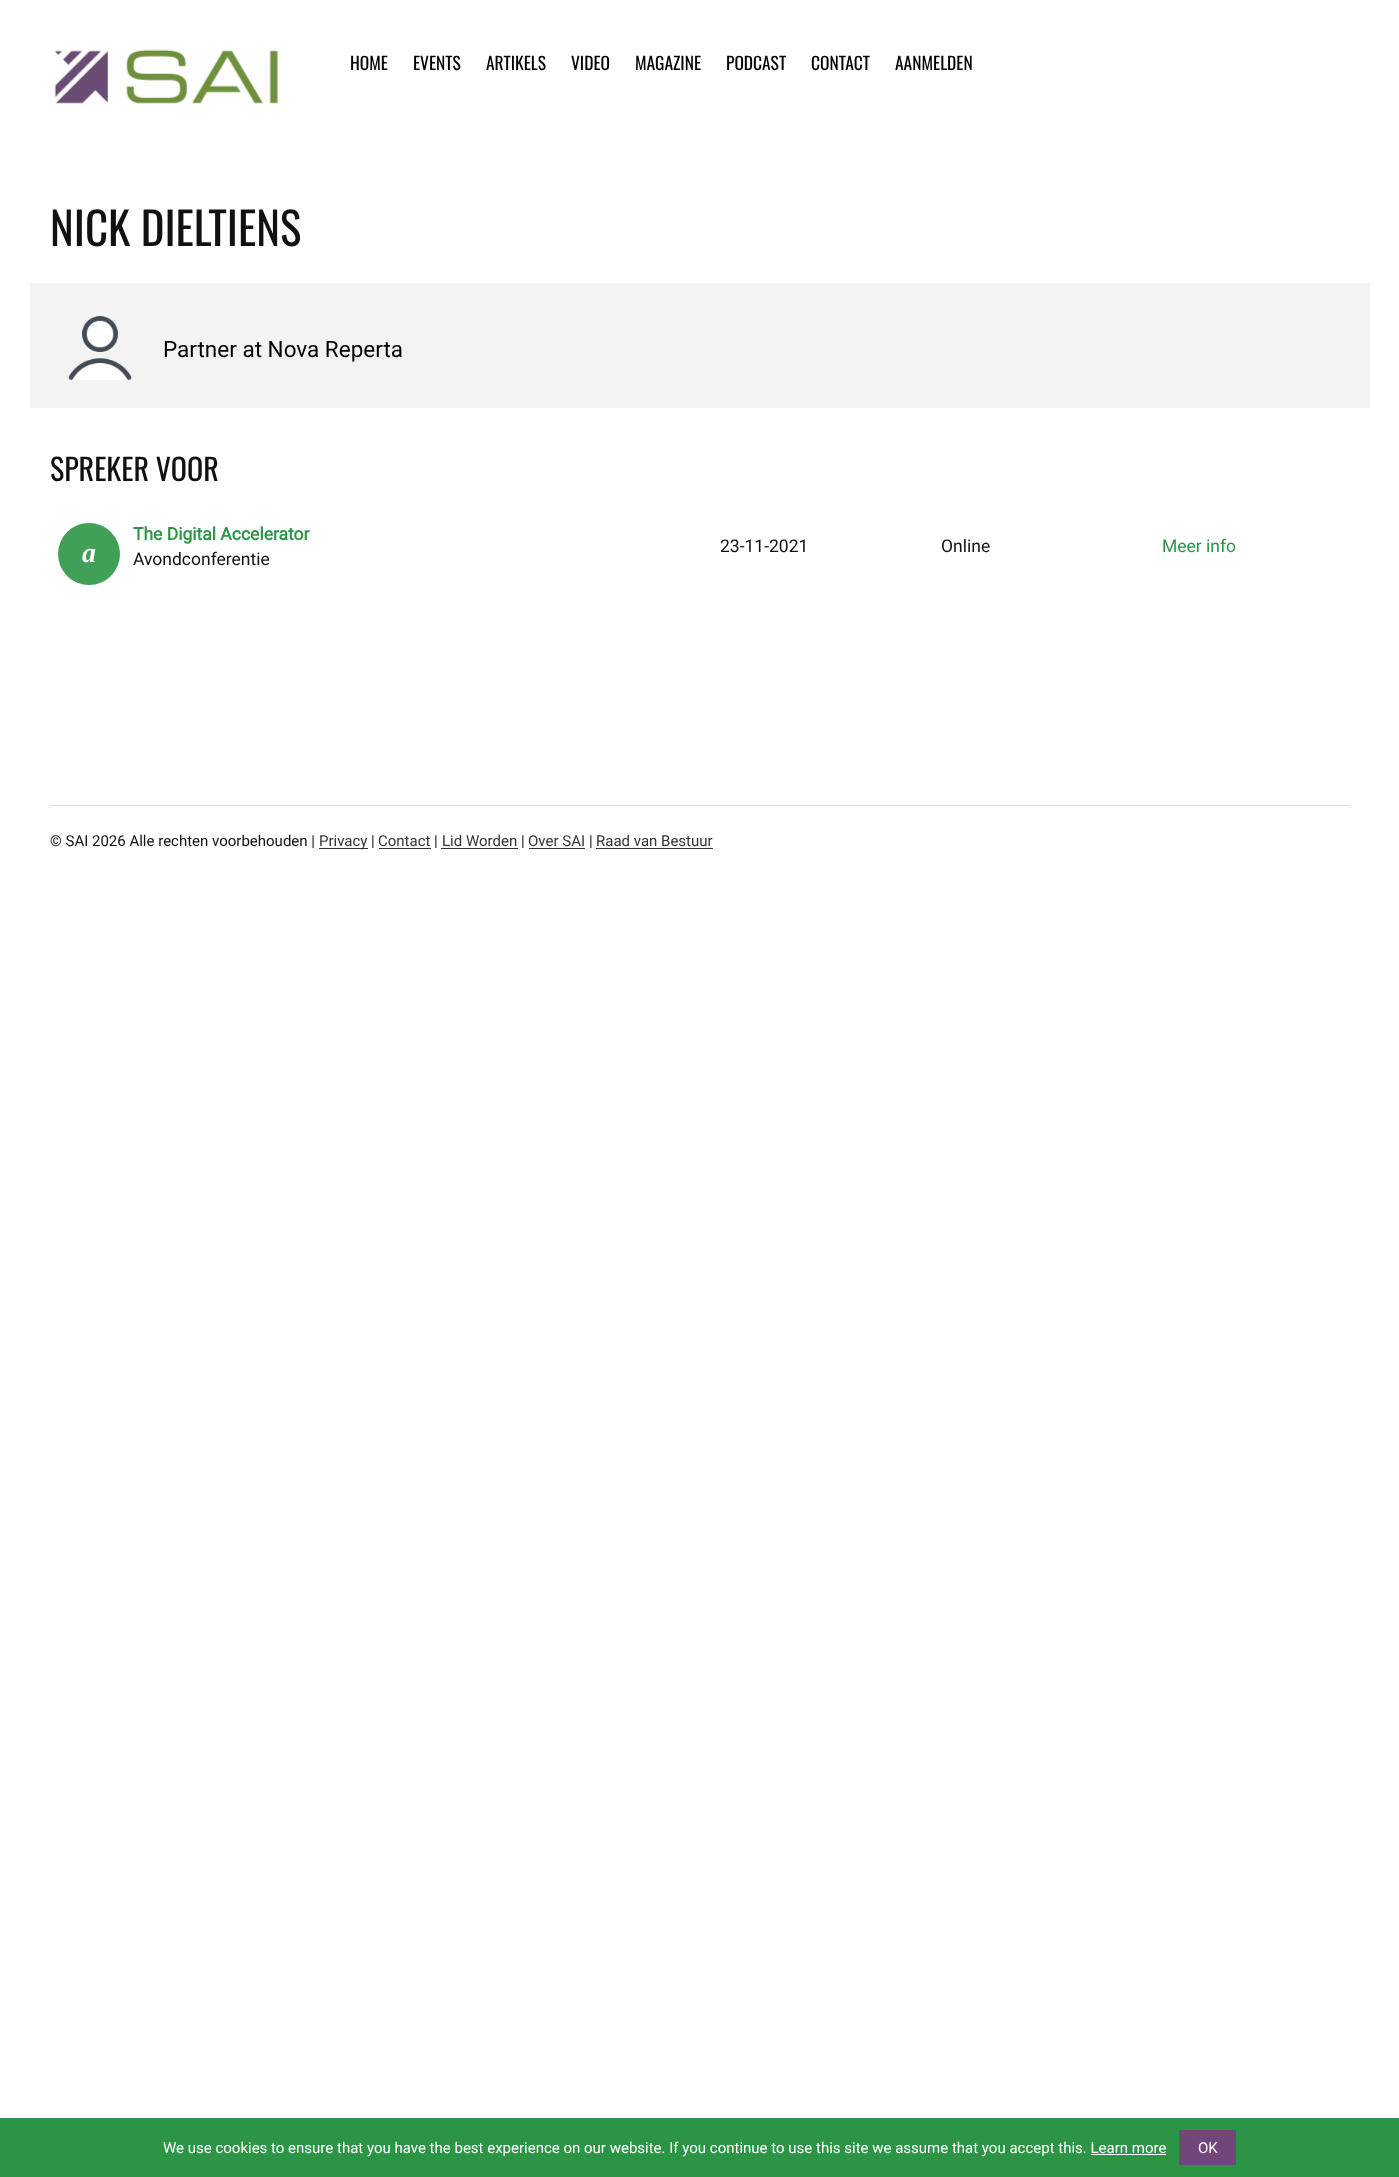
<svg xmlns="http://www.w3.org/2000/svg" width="1399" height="2177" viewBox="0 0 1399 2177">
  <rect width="100%" height="100%" fill="#fff"/>
  <image x="54" y="49" width="225" height="55" href="img/1.png"/>
  <path d="M30 283h1340v125H30z" fill="#f3f3f3"/>
  <image x="68" y="316" width="64" height="65" href="img/2.png"/>
  <circle cx="89" cy="554" r="31" fill="#40a058"/>
  <path d="M50 805h1300v1H50z" fill="#dae1e7"/>
  <path d="M319 848h49v1H319z" fill="#333"/>
  <path d="M379 848h52v1H379z" fill="#333"/>
  <path d="M441 848h77v1H441z" fill="#333"/>
  <path d="M529 848h56v1H529z" fill="#333"/>
  <path d="M596 848h117v1H596z" fill="#333"/>
  <path d="M0 2118h1399v59H0z" fill="#2b9545"/>
  <path d="M1179 2130h57v35H1179z" fill="#71477b"/>
  <path d="M1091 2154h75v1H1091z" fill="#fff"/>
  <g font-family="Oswald" font-size="17.5" fill="#000">
    <text x="350" y="70">HOME</text>
    <text x="413" y="70">EVENTS</text>
    <text x="486" y="70">ARTIKELS</text>
    <text x="571" y="70">VIDEO</text>
    <text x="635" y="70">MAGAZINE</text>
    <text x="726" y="70">PODCAST</text>
    <text x="811" y="70">CONTACT</text>
    <text x="895" y="70">AANMELDEN</text>
  </g>
  <text x="50" y="246" font-family="Oswald" font-size="45" fill="#111">NICK DIELTIENS</text>
  <text x="163" y="357" font-family="Roboto" font-size="22.5" fill="#000">Partner at Nova Reperta</text>
  <text x="50" y="481" font-family="Oswald" font-size="30" fill="#111">SPREKER VOOR</text>
  <text x="82" y="562" font-family="Liberation Serif" font-size="28" font-weight="bold" font-style="italic" fill="#fff">a</text>
  <text x="133" y="540" font-family="Roboto" font-size="17.5" font-weight="bold" fill="#2b9545">The Digital Accelerator</text>
  <g font-family="Roboto" font-size="17.5" fill="#111">
    <text x="133" y="565">Avondconferentie</text>
    <text x="720" y="552">23-11-2021</text>
    <text x="941" y="552">Online</text>
  </g>
  <text x="1162" y="552" font-family="Roboto" font-size="17.5" fill="#2b9545">Meer info</text>
  <text x="50" y="846" font-family="Roboto" font-size="15" fill="#111">© SAI 2026 Alle rechten voorbehouden |</text>
  <text x="319" y="846" font-family="Roboto" font-size="15" fill="#333">Privacy</text>
  <text x="371" y="846" font-family="Roboto" font-size="15" fill="#111">|</text>
  <text x="378" y="846" font-family="Roboto" font-size="15" fill="#333">Contact</text>
  <text x="434" y="846" font-family="Roboto" font-size="15" fill="#111">|</text>
  <text x="442" y="846" font-family="Roboto" font-size="15" fill="#333">Lid Worden</text>
  <text x="521" y="846" font-family="Roboto" font-size="15" fill="#111">|</text>
  <text x="528" y="846" font-family="Roboto" font-size="15" fill="#333">Over SAI</text>
  <text x="589" y="846" font-family="Roboto" font-size="15" fill="#111">|</text>
  <text x="596" y="846" font-family="Roboto" font-size="15" fill="#333">Raad van Bestuur</text>
  <g font-family="Roboto" font-size="15" fill="#fff">
    <text x="163" y="2153">We use cookies to ensure that you have the best experience on our website. If you continue to use this site we assume that you accept this. Learn more</text>
    <text x="1198" y="2153">OK</text>
  </g>
</svg>
